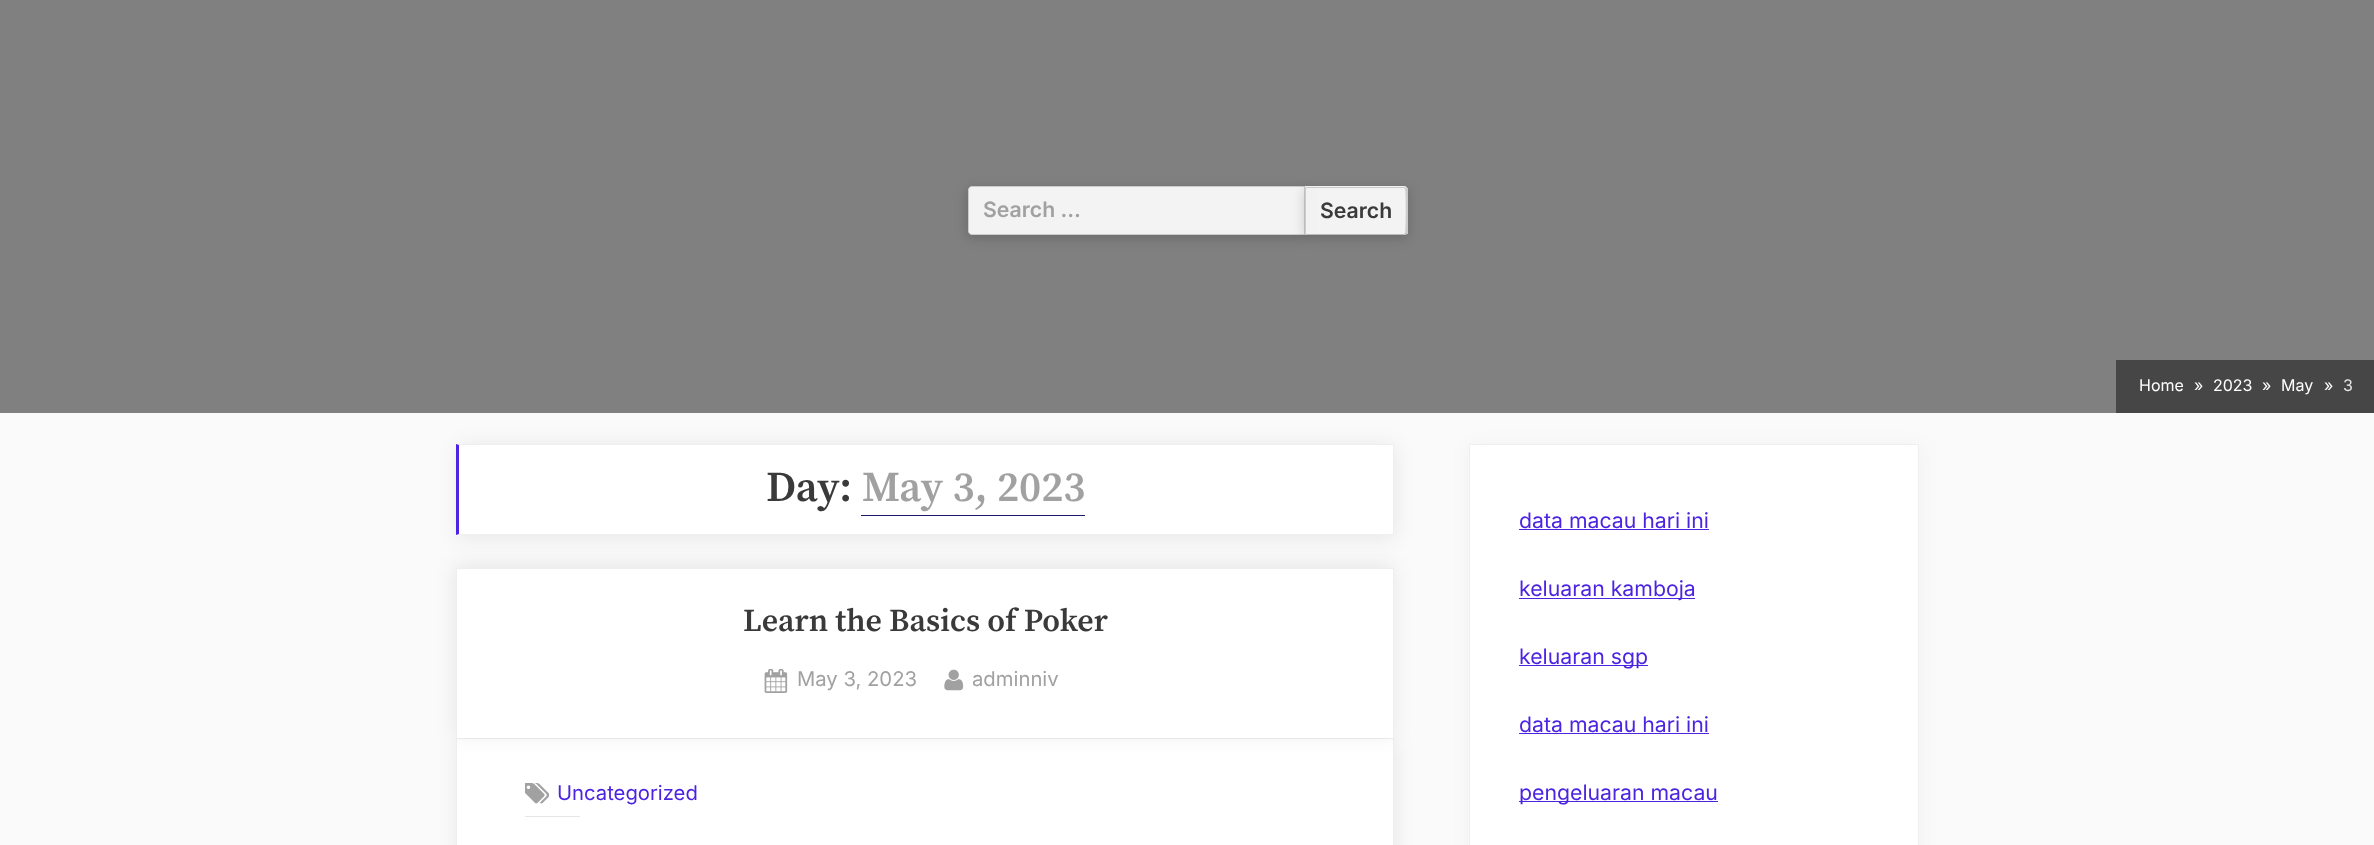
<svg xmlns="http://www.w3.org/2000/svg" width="2374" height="845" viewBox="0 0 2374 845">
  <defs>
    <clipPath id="clip1"><path d="M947 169H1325V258H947ZM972 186H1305V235H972C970 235 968 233 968 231V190C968 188 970 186 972 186Z" clip-rule="evenodd"/></clipPath>
    <clipPath id="clip2"><path d="M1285 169H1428V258H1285ZM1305 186H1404C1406 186 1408 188 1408 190V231C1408 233 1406 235 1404 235H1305Z" clip-rule="evenodd"/></clipPath>
  </defs>
  <rect width="100%" height="100%" fill="#fafafa"/>
  <path d="M0 0h2374v413H0z" fill="#808080"/>
  <g clip-path="url(#clip1)">
    <rect x="966" y="188" width="340" height="51" rx="5" fill="#00000026" filter="blur(6px)"/>
  </g>
  <path d="M972 186.5H1304.5V234.5H972C970 234.5 968.5 233 968.5 231V190C968.5 188 970 186.5 972 186.5Z" fill="#ffffffe6" stroke="#ccc"/>
  <g clip-path="url(#clip2)">
    <rect x="1304" y="188" width="105" height="51" rx="5" fill="#00000026" filter="blur(6px)"/>
  </g>
  <path d="M1305 186H1404C1406 186 1408 188 1408 190V231C1408 233 1406 235 1404 235H1305Z" fill="#ffffffe6"/>
  <path d="M1407 188L1404 187H1305L1306 188H1404L1405 189Z" fill="#ccc"/>
  <path d="M1408 234H1407L1405 233C1406 232 1406 190 1405 189L1407 188H1408Z" fill="#ccc"/>
  <path d="M1407 234L1404 235H1305L1306 234H1404L1405 233Z" fill="#bbb"/>
  <path d="M1306 188V234L1305 235V187Z" fill="#ccc"/>
  <path d="M2116 360h258v53H2116z" fill="#464646"/>
  <path d="M458 446h937v92H458z" fill="#00000014" filter="blur(10px)"/>
  <path d="M459 445h934v89H459z" fill="#fff"/>
  <path d="M456 444H1394L1392 445H459Z" fill="#efefef"/>
  <path d="M1393 444h1v91H1393z" fill="#efefef"/>
  <path d="M1394 535H456L459 534H1392Z" fill="#efefef"/>
  <path d="M456 535V444L459 445V534Z" fill="#4b23e1"/>
  <path d="M861 515h224v1H861z" fill="#191970"/>
  <path d="M458 740h937v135H458z" fill="#00000014" filter="blur(10px)"/>
  <path d="M456.5 738.5h937v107H456.5z" fill="#fff" stroke="#efefef"/>
  <path d="M455 565h938v170H455z" fill="#00000014" filter="blur(10px)"/>
  <path d="M457 569h936v169H457z" fill="#fff"/>
  <path d="M456 568h938v1H456z" fill="#efefef"/>
  <path d="M1393 568h1v170H1393z" fill="#efefef"/>
  <path d="M456 568h1v170H456z" fill="#efefef"/>
  <image x="764" y="669" width="24" height="24" href="img/1.png"/>
  <image x="944" y="669" width="20" height="22" href="img/2.png"/>
  <image x="525" y="783" width="24" height="21" href="img/3.png"/>
  <path d="M525 816h55v1H525z" fill="#e6e6e6"/>
  <path d="M1470 446h450v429H1470z" fill="#0000000a" filter="blur(10px)"/>
  <path d="M1469.5 444.5h449v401H1469.5z" fill="#fff" stroke="#efefef"/>
  <path d="M1519 529h190v1H1519z" fill="#4b23e1"/>
  <path d="M1519 598h176v1H1519z" fill="#4b23e1"/>
  <path d="M1519 665h129v1H1519z" fill="#4b23e1"/>
  <path d="M1519 733h190v1H1519z" fill="#4b23e1"/>
  <path d="M1519 801h199v1H1519z" fill="#4b23e1"/>
  <text x="983" y="217" font-family="Inter" font-size="21.25" font-weight="600" fill="#a1a1a1">Search …</text>
  <text x="1320" y="218" font-family="Inter" font-size="21.25" font-weight="600" fill="#3a3a3a">Search</text>
  <g font-family="Inter" font-size="16" fill="#fff">
    <text x="2139" y="391">Home</text>
    <text x="2194" y="391">»</text>
    <text x="2213" y="391">2023</text>
    <text x="2262" y="391">»</text>
    <text x="2281" y="391">May</text>
    <text x="2324" y="391">»</text>
  </g>
  <text x="2343" y="391" font-family="Inter" font-size="16" fill="#e7e5e5">3</text>
  <text x="766" y="501" font-family="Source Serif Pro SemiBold" font-size="42.5" font-weight="600" fill="#3a3a3a">Day:</text>
  <text x="862" y="501" font-family="Source Serif Pro SemiBold" font-size="42.5" font-weight="600" fill="#a1a1a1">May 3, 2023</text>
  <text x="743" y="631" font-family="Source Serif Pro SemiBold" font-size="31.9" font-weight="600" fill="#3a3a3a">Learn the Basics of Poker</text>
  <g font-family="Inter" font-size="20.25" fill="#a1a1a1">
    <text x="797" y="686">May 3, 2023</text>
    <text x="972" y="686">adminniv</text>
  </g>
  <text x="557" y="800" font-family="Inter" font-size="20.25" fill="#4b23e1">Uncategorized</text>
  <g font-family="Inter" font-size="21.25" fill="#4b23e1">
    <text x="1519" y="528">data macau hari ini</text>
    <text x="1519" y="596">keluaran kamboja</text>
    <text x="1519" y="664">keluaran sgp</text>
    <text x="1519" y="732">data macau hari ini</text>
    <text x="1519" y="800">pengeluaran macau</text>
  </g>
</svg>
